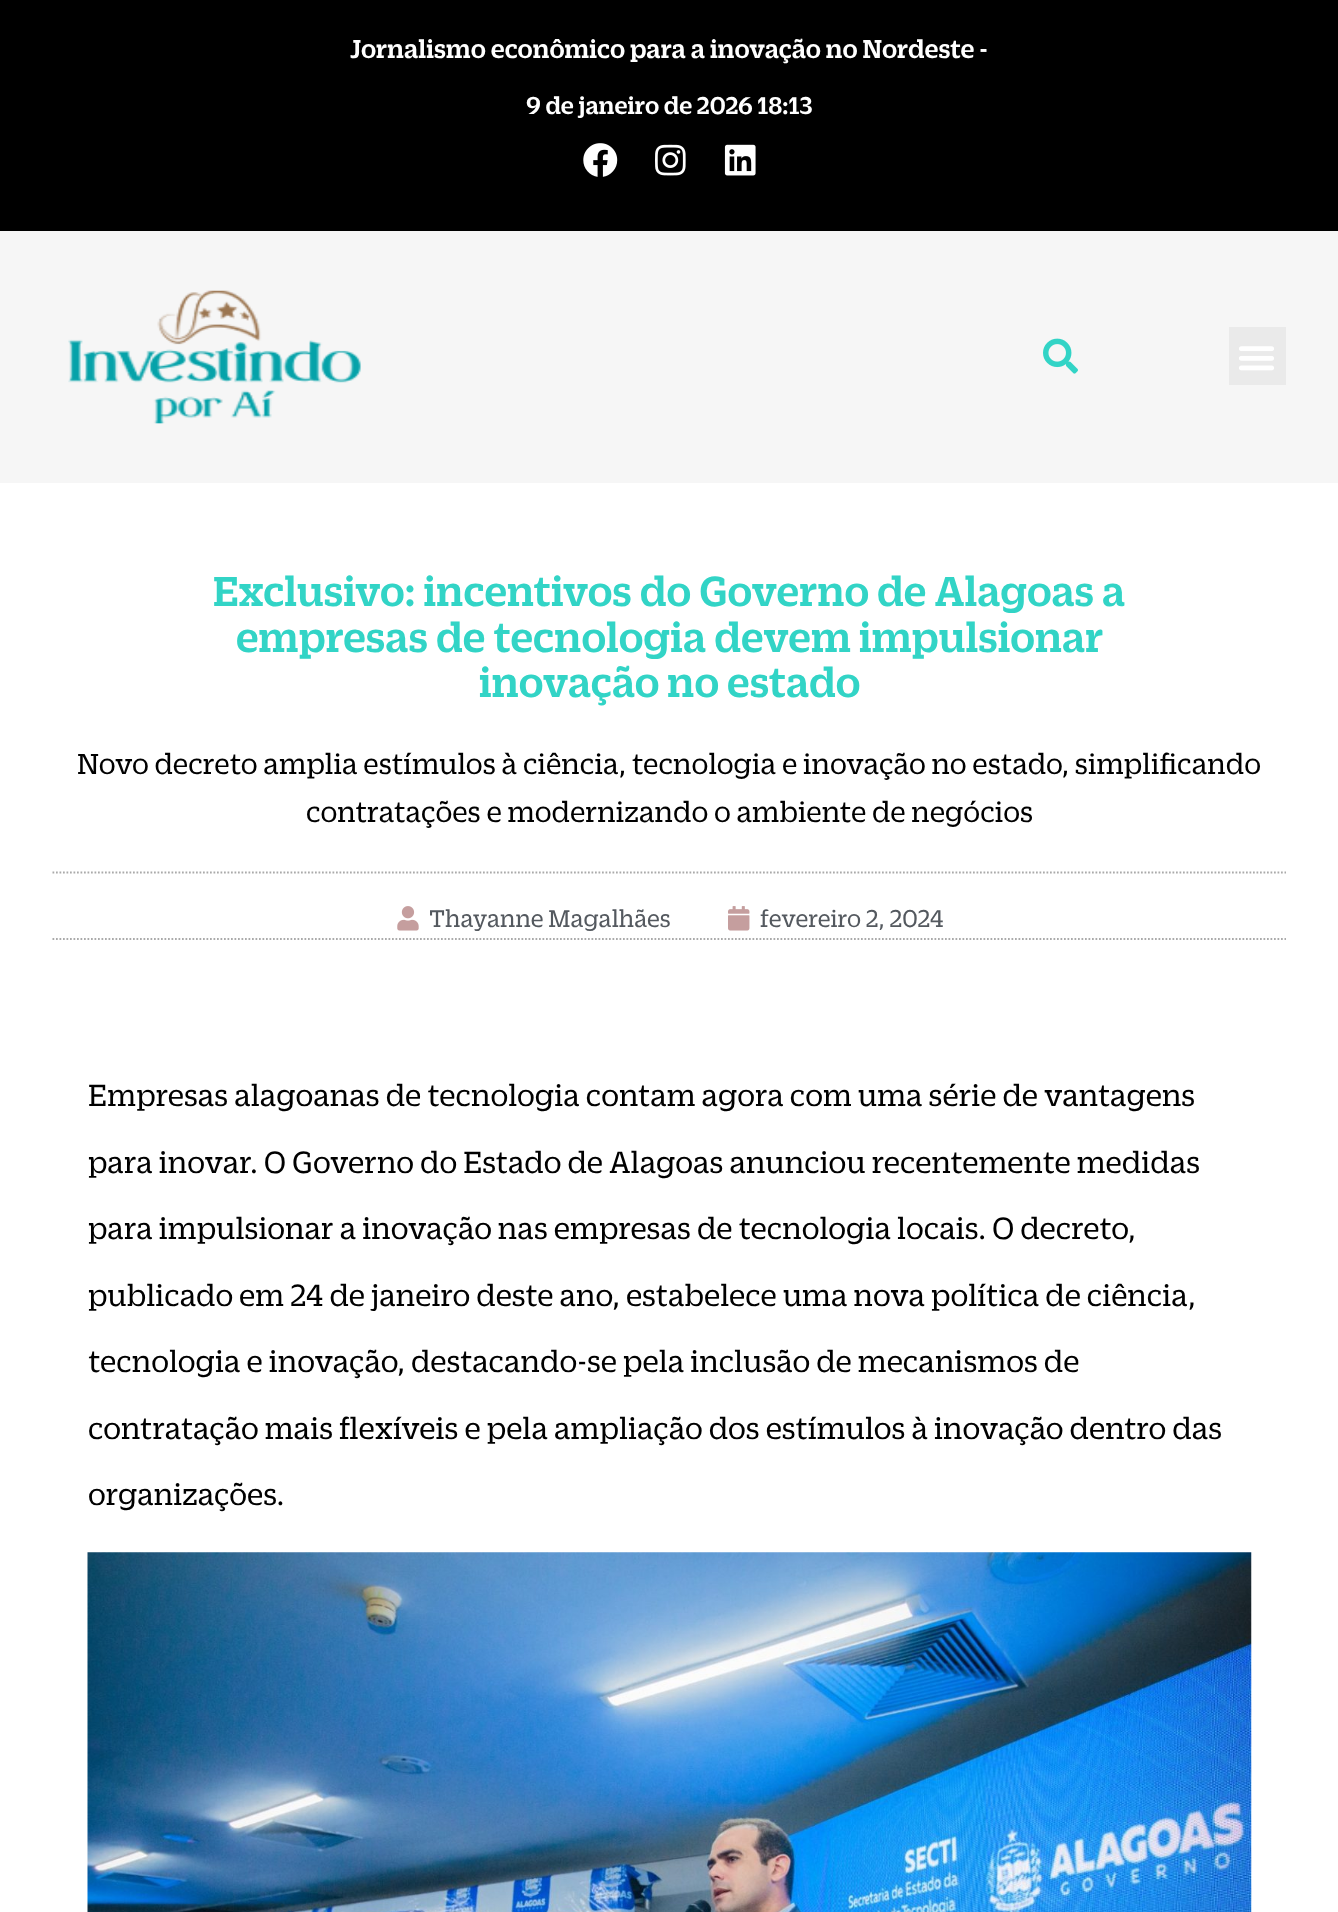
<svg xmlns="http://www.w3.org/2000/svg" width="1338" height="1912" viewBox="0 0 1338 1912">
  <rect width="100%" height="100%" fill="#fff"/>
  <path d="M0 0h1338v231H0z" fill="#000"/>
  <image x="583" y="143" width="35" height="34" href="img/1.png"/>
  <image x="655" y="144" width="31" height="32" href="img/2.png"/>
  <image x="724" y="144" width="32" height="32" href="img/3.png"/>
  <path d="M0 231h1338v252H0z" fill="#f6f6f6"/>
  <image x="68" y="290" width="293" height="134" href="img/4.png"/>
  <image x="1043" y="338" width="35" height="36" href="img/5.png"/>
  <path d="M1229 327h57v58H1229z" fill="#eaeaea"/>
  <image x="1239" y="346" width="35" height="25" href="img/6.png"/>
  <path d="M52.5 872.5H1286" fill="none" stroke="#aaa" stroke-width="1.8" stroke-dasharray="1.75 1.75"/>
  <path d="M52.5 939H1286" fill="none" stroke="#aaa" stroke-width="1.8" stroke-dasharray="1.75 1.75"/>
  <image x="397" y="906" width="22" height="25" href="img/7.png"/>
  <image x="728" y="906" width="22" height="25" href="img/8.png"/>
  <image x="87" y="1552" width="1165" height="360" href="img/9.png"/>
  <text x="350" y="58" font-family="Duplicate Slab" font-size="28" font-weight="500" fill="#fff">Jornalismo econômico para a inovação no Nordeste -</text>
  <text x="526" y="114" font-family="Duplicate Slab" font-size="26.25" font-weight="500" fill="#fff">9 de janeiro de 2026 18:13</text>
  <g font-family="Duplicate Slab" font-size="45.5" font-weight="500" fill="#32d4c6">
    <text x="213" y="606">Exclusivo: incentivos do Governo de Alagoas a</text>
    <text x="236" y="652">empresas de tecnologia devem impulsionar</text>
    <text x="479" y="697">inovação no estado</text>
  </g>
  <g font-family="Duplicate Slab" font-size="31.5" fill="#000">
    <text x="77" y="774">Novo decreto amplia estímulos à ciência, tecnologia e inovação no estado, simplificando</text>
    <text x="306" y="822">contratações e modernizando o ambiente de negócios</text>
  </g>
  <g font-family="Duplicate Slab" font-size="26.25" fill="#54595f">
    <text x="429" y="927">Thayanne Magalhães</text>
    <text x="760" y="927">fevereiro 2, 2024</text>
  </g>
  <g font-family="Duplicate Slab" font-size="33.25" fill="#000">
    <text x="88" y="1106">Empresas alagoanas de tecnologia contam agora com uma série de vantagens</text>
    <text x="88" y="1173">para inovar. O Governo do Estado de Alagoas anunciou recentemente medidas</text>
    <text x="88" y="1239">para impulsionar a inovação nas empresas de tecnologia locais. O decreto,</text>
    <text x="88" y="1306">publicado em 24 de janeiro deste ano, estabelece uma nova política de ciência,</text>
    <text x="88" y="1372">tecnologia e inovação, destacando-se pela inclusão de mecanismos de</text>
    <text x="88" y="1439">contratação mais flexíveis e pela ampliação dos estímulos à inovação dentro das</text>
    <text x="88" y="1505">organizações.</text>
  </g>
</svg>
